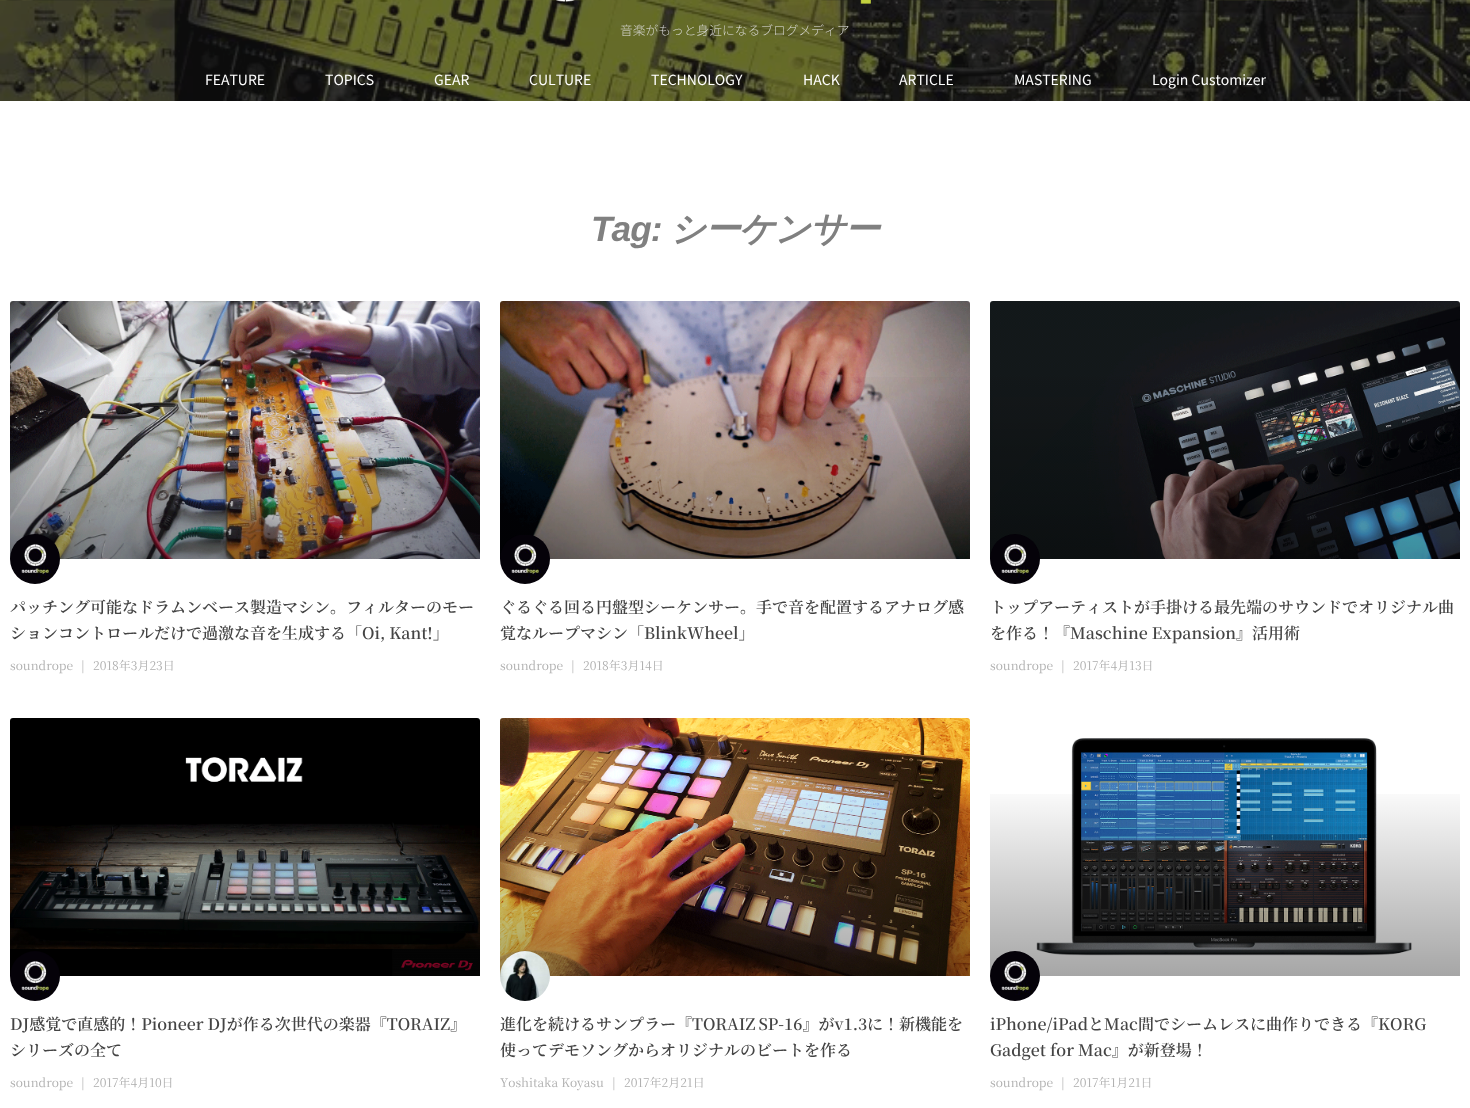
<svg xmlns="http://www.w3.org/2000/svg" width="1470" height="1108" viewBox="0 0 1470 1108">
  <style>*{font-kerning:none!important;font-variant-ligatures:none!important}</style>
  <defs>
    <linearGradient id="g1" gradientUnits="userSpaceOnUse" x1="245" y1="559" x2="245" y2="301"><stop offset="0" stop-color="#000" stop-opacity="0.35"/><stop offset="0.75" stop-color="#000" stop-opacity="0"/></linearGradient>
    <linearGradient id="g2" gradientUnits="userSpaceOnUse" x1="735" y1="559" x2="735" y2="301"><stop offset="0" stop-color="#000" stop-opacity="0.35"/><stop offset="0.75" stop-color="#000" stop-opacity="0"/></linearGradient>
    <linearGradient id="g3" gradientUnits="userSpaceOnUse" x1="1225" y1="559" x2="1225" y2="301"><stop offset="0" stop-color="#000" stop-opacity="0.35"/><stop offset="0.75" stop-color="#000" stop-opacity="0"/></linearGradient>
    <linearGradient id="g4" gradientUnits="userSpaceOnUse" x1="245" y1="976" x2="245" y2="718"><stop offset="0" stop-color="#000" stop-opacity="0.35"/><stop offset="0.75" stop-color="#000" stop-opacity="0"/></linearGradient>
    <linearGradient id="g5" gradientUnits="userSpaceOnUse" x1="735" y1="976" x2="735" y2="718"><stop offset="0" stop-color="#000" stop-opacity="0.35"/><stop offset="0.75" stop-color="#000" stop-opacity="0"/></linearGradient>
    <linearGradient id="g6" gradientUnits="userSpaceOnUse" x1="1225" y1="976" x2="1225" y2="718"><stop offset="0" stop-color="#000" stop-opacity="0.35"/><stop offset="0.75" stop-color="#000" stop-opacity="0"/></linearGradient>
  </defs>
  <rect width="100%" height="100%" fill="#fff"/>
  <image x="0" y="0" width="1470" height="101" href="img/1.png"/>
  <image x="0" y="0" width="1470" height="101" href="img/2.png"/>
  <image x="556" y="0" width="315" height="4" href="img/3.png"/>
  <image x="10" y="301" width="470" height="258" href="img/4.png"/>
  <path d="M10 377h470v182H10z" fill="url(#g1)"/>
  <image x="10" y="534" width="50" height="50" href="img/5.png"/>
  <image x="500" y="301" width="470" height="258" href="img/6.png"/>
  <path d="M500 377h470v182H500z" fill="url(#g2)"/>
  <image x="500" y="535" width="50" height="49" href="img/7.png"/>
  <image x="990" y="301" width="470" height="258" href="img/8.png"/>
  <path d="M990 377h470v182H990z" fill="url(#g3)"/>
  <image x="990" y="534" width="50" height="50" href="img/9.png"/>
  <image x="10" y="718" width="470" height="258" href="img/10.png"/>
  <path d="M10 830h470v141H10z" fill="url(#g4)"/>
  <image x="10" y="951" width="50" height="50" href="img/11.png"/>
  <image x="500" y="718" width="470" height="258" href="img/12.png"/>
  <path d="M500 794h470v182H500z" fill="url(#g5)"/>
  <image x="500" y="951" width="50" height="50" href="img/13.png"/>
  <image x="1036" y="738" width="376" height="218" href="img/14.png"/>
  <path d="M990 794h470v182H990z" fill="url(#g6)"/>
  <image x="990" y="951" width="50" height="50" href="img/15.png"/>
  <text x="620" y="35" font-family="Noto Sans JP" font-size="12.75" font-weight="200" fill="#e0e0e0">音楽がもっと身近になるブログメディア</text>
  <g font-family="Noto Sans JP" font-size="14" fill="#fff">
    <text x="205" y="85">FEATURE</text>
    <text x="325" y="85">TOPICS</text>
    <text x="434" y="85">GEAR</text>
    <text x="529" y="85">CULTURE</text>
    <text x="651" y="85">TECHNOLOGY</text>
    <text x="803" y="85">HACK</text>
    <text x="899" y="85">ARTICLE</text>
    <text x="1014" y="85">MASTERING</text>
    <text x="1152" y="85">Login Customizer</text>
  </g>
  <text x="591" y="241" font-family="Liberation Sans" font-size="35.25" font-weight="bold" font-style="italic" letter-spacing="-1" fill="#808080">Tag:</text>
  <text x="670" y="241" font-family="WenQuanYi Zen Hei" font-size="35.25" font-weight="bold" font-style="italic" letter-spacing="-1" fill="#808080">シーケンサー</text>
  <g font-family="Noto Serif JP" font-size="16" font-weight="600" fill="#444">
    <text x="10" y="613">パッチング可能なドラムンベース製造マシン</text>
    <text x="330" y="613">。フィルターのモー</text>
    <text x="10" y="639">ションコントロールだけで過激な音を生成する「Oi, Kant!」</text>
  </g>
  <g font-family="Noto Serif JP" font-size="12" fill="#adadad">
    <text x="10" y="670">soundrope</text>
    <text x="81" y="670">|</text>
    <text x="93" y="670">2018年3月23日</text>
  </g>
  <g font-family="Noto Serif JP" font-size="16" font-weight="600" fill="#444">
    <text x="500" y="613">ぐるぐる回る円盤型シーケンサー。手で音を配置するアナログ感</text>
    <text x="500" y="639">覚なループマシン「BlinkWheel」</text>
  </g>
  <g font-family="Noto Serif JP" font-size="12" fill="#adadad">
    <text x="500" y="670">soundrope</text>
    <text x="571" y="670">|</text>
    <text x="583" y="670">2018年3月14日</text>
  </g>
  <g font-family="Noto Serif JP" font-size="16" font-weight="600" fill="#444">
    <text x="990" y="613">トップアーティストが手掛ける最先端のサウンドでオリジナル曲</text>
    <text x="990" y="639">を作る！『Maschine Expansion』活用術</text>
  </g>
  <g font-family="Noto Serif JP" font-size="12" fill="#adadad">
    <text x="990" y="670">soundrope</text>
    <text x="1061" y="670">|</text>
    <text x="1073" y="670">2017年4月13日</text>
  </g>
  <g font-family="Noto Serif JP" font-size="16" font-weight="600" fill="#444">
    <text x="10" y="1030">DJ感覚で直感的！Pioneer DJが作る次世代の楽器『TORAIZ』</text>
    <text x="10" y="1056">シリーズの全て</text>
  </g>
  <g font-family="Noto Serif JP" font-size="12" fill="#adadad">
    <text x="10" y="1087">soundrope</text>
    <text x="81" y="1087">|</text>
    <text x="93" y="1087">2017年4月10日</text>
  </g>
  <g font-family="Noto Serif JP" font-size="16" font-weight="600" fill="#444">
    <text x="500" y="1030" word-spacing="-1">進化を続けるサンプラー『TORAIZ SP-16』がv1.3に！新機能を</text>
    <text x="500" y="1056">使ってデモソングからオリジナルのビートを作る</text>
  </g>
  <g font-family="Noto Serif JP" font-size="12" fill="#adadad">
    <text x="500" y="1087">Yoshitaka Koyasu</text>
    <text x="612" y="1087">|</text>
    <text x="624" y="1087">2017年2月21日</text>
  </g>
  <g font-family="Noto Serif JP" font-size="16" font-weight="600" fill="#444">
    <text x="990" y="1030">iPhone/iPadとMac間でシームレスに曲作りできる『KORG</text>
    <text x="990" y="1056">Gadget for Mac』が新登場！</text>
  </g>
  <g font-family="Noto Serif JP" font-size="12" fill="#adadad">
    <text x="990" y="1087">soundrope</text>
    <text x="1061" y="1087">|</text>
    <text x="1073" y="1087">2017年1月21日</text>
  </g>
</svg>
